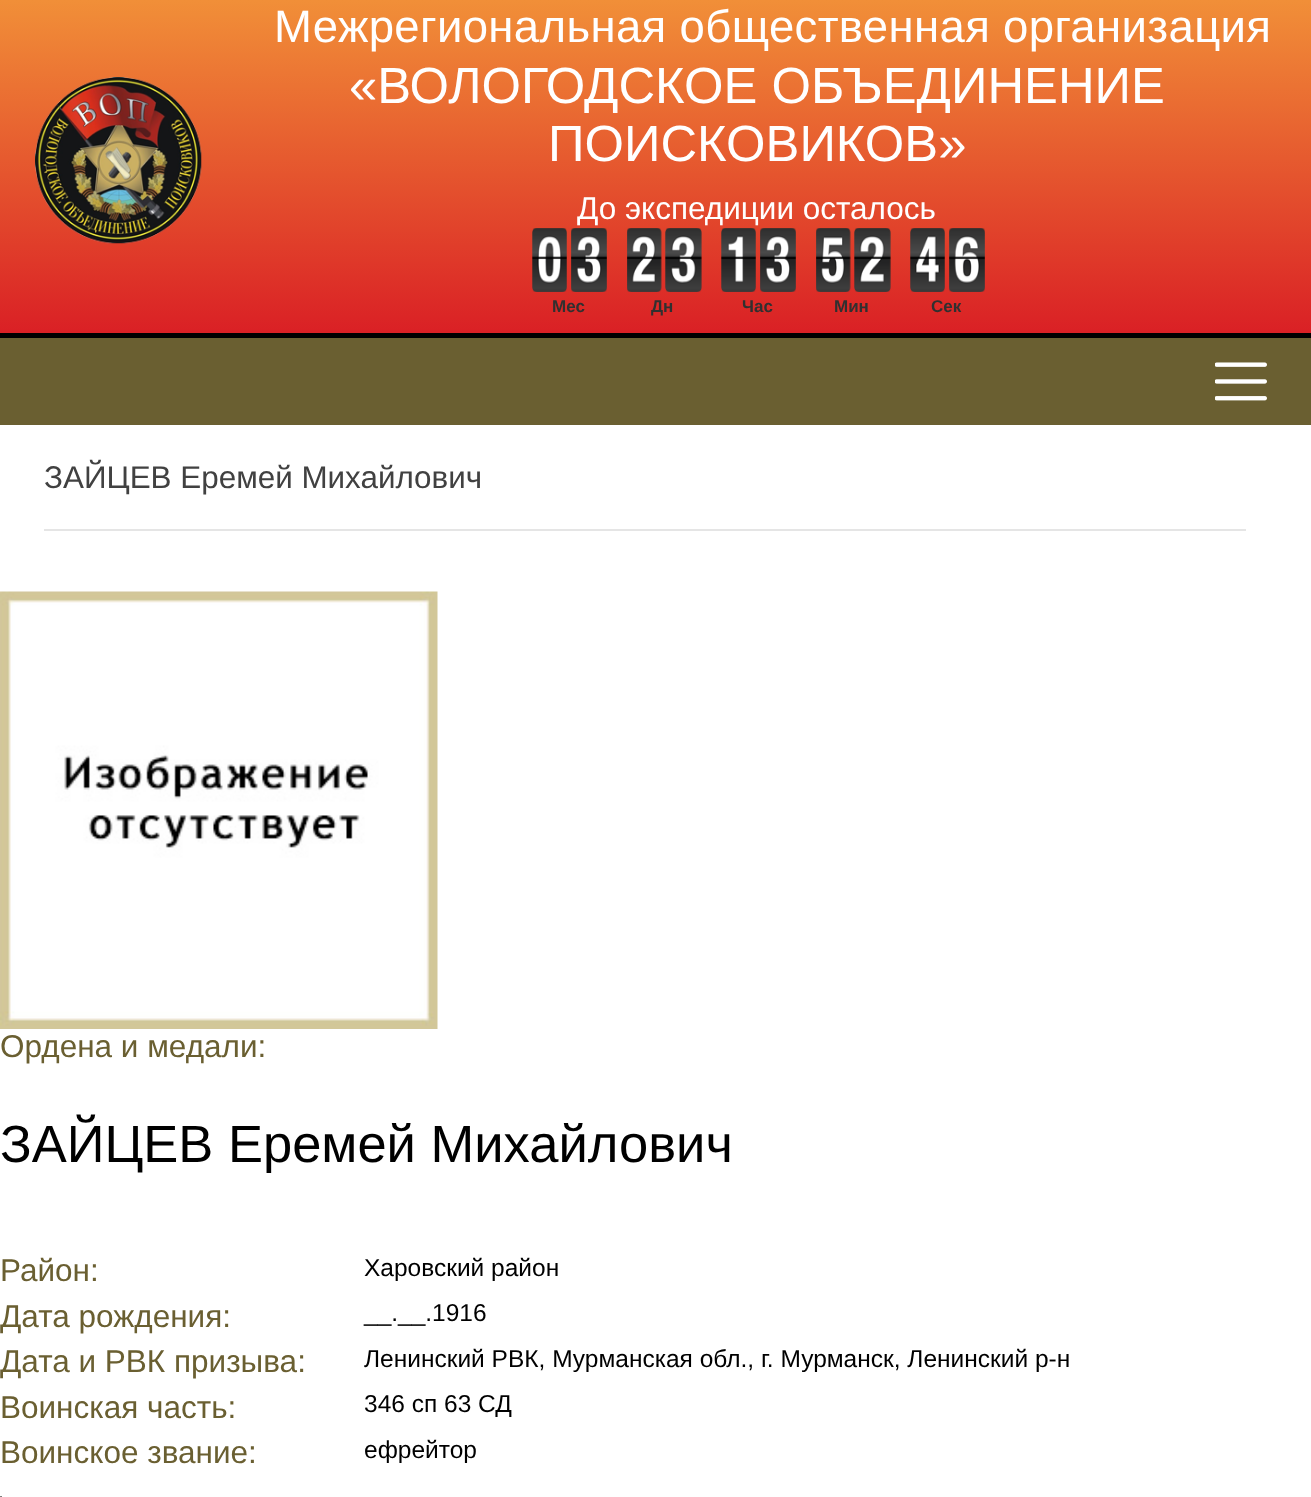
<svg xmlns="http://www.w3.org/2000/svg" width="1311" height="1497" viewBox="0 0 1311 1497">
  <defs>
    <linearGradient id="g1" gradientUnits="userSpaceOnUse" x1="656" y1="333" x2="656" y2="0"><stop offset="0" stop-color="#da2025"/><stop offset="1" stop-color="#f18f38"/></linearGradient>
  </defs>
  <rect width="100%" height="100%" fill="#fff"/>
  <path d="M0 0h1311v333H0z" fill="url(#g1)"/>
  <path d="M0 333h1311v5H0z" fill="#000"/>
  <image x="35" y="77" width="167" height="167" href="img/1.png"/>
  <image x="532" y="228" width="35" height="64" href="img/2.png"/>
  <image x="571" y="228" width="36" height="64" href="img/3.png"/>
  <image x="627" y="228" width="35" height="64" href="img/4.png"/>
  <image x="665" y="228" width="37" height="64" href="img/5.png"/>
  <image x="721" y="228" width="35" height="64" href="img/6.png"/>
  <image x="760" y="228" width="36" height="64" href="img/3.png"/>
  <image x="816" y="228" width="35" height="64" href="img/7.png"/>
  <image x="854" y="228" width="37" height="64" href="img/8.png"/>
  <image x="910" y="228" width="35" height="64" href="img/9.png"/>
  <image x="949" y="228" width="36" height="64" href="img/10.png"/>
  <path d="M0 338h1311v87H0z" fill="#6a5f31"/>
  <image x="1215" y="362" width="52" height="39" href="img/11.png"/>
  <path d="M44 529h1202v2H44z" fill="#e5e5e5"/>
  <image x="0" y="591" width="438" height="438" href="img/12.png"/>
  <image x="0" y="1496" width="2" height="1" href="img/13.png"/>
  <image x="0" y="1496" width="2" height="1" href="img/14.png"/>
  <image x="0" y="1496" width="2" height="1" href="img/15.png"/>
  <image x="0" y="1496" width="2" height="1" href="img/16.png"/>
  <image x="0" y="1496" width="2" height="1" href="img/17.png"/>
  <image x="0" y="1496" width="2" height="1" href="img/18.png"/>
  <image x="0" y="1496" width="2" height="1" href="img/19.png"/>
  <image x="0" y="1496" width="2" height="1" href="img/20.png"/>
  <image x="0" y="1496" width="2" height="1" href="img/21.png"/>
  <image x="0" y="1496" width="2" height="1" href="img/22.png"/>
  <image x="0" y="1496" width="2" height="1" href="img/23.png"/>
  <image x="0" y="1496" width="2" height="1" href="img/24.png"/>
  <image x="0" y="1496" width="2" height="1" href="img/25.png"/>
  <image x="0" y="1496" width="2" height="1" href="img/26.png"/>
  <image x="0" y="1496" width="2" height="1" href="img/27.png"/>
  <image x="0" y="1496" width="2" height="1" href="img/28.png"/>
  <image x="0" y="1496" width="2" height="1" href="img/29.png"/>
  <image x="0" y="1496" width="2" height="1" href="img/30.png"/>
  <image x="0" y="1496" width="2" height="1" href="img/31.png"/>
  <image x="0" y="1496" width="2" height="1" href="img/32.png"/>
  <image x="0" y="1496" width="2" height="1" href="img/33.png"/>
  <image x="0" y="1496" width="2" height="1" href="img/34.png"/>
  <image x="0" y="1496" width="2" height="1" href="img/35.png"/>
  <image x="0" y="1496" width="2" height="1" href="img/36.png"/>
  <image x="0" y="1496" width="2" height="1" href="img/37.png"/>
  <image x="0" y="1496" width="2" height="1" href="img/38.png"/>
  <image x="0" y="1496" width="2" height="1" href="img/39.png"/>
  <text x="274" y="42" font-family="Liberation Sans" font-size="45.5" letter-spacing="0.35" fill="#fff">Межрегиональная общественная организация</text>
  <g font-family="Liberation Sans" font-size="50.75" fill="#fff">
    <text x="349" y="103">«ВОЛОГОДСКОЕ ОБЪЕДИНЕНИЕ</text>
    <text x="548" y="161">ПОИСКОВИКОВ»</text>
  </g>
  <text x="577" y="219" font-family="Liberation Sans" font-size="31.5" fill="#fff">До экспедиции осталось</text>
  <g font-family="Liberation Sans" font-size="17" font-weight="bold" fill="#303030">
    <text x="552" y="312">Мес</text>
    <text x="651" y="312">Дн</text>
    <text x="742" y="312">Час</text>
    <text x="834" y="312">Мин</text>
    <text x="931" y="312">Сек</text>
  </g>
  <text x="44" y="488" font-family="Liberation Sans" font-size="31.4" fill="#414141">ЗАЙЦЕВ Еремей Михайлович</text>
  <text x="0" y="1057" font-family="Liberation Sans" font-size="31.5" fill="#6a5f31">Ордена и медали:</text>
  <text x="0" y="1162" font-family="Liberation Sans" font-size="52.5" fill="#000">ЗАЙЦЕВ Еремей Михайлович</text>
  <text x="0" y="1281" font-family="Liberation Sans" font-size="31.5" fill="#6a5f31">Район:</text>
  <text x="364" y="1276" font-family="Liberation Sans" font-size="24.5" fill="#000">Харовский район</text>
  <text x="0" y="1327" font-family="Liberation Sans" font-size="31.5" fill="#6a5f31">Дата рождения:</text>
  <text x="364" y="1321" font-family="Liberation Sans" font-size="24.5" fill="#000">__.__.1916</text>
  <text x="0" y="1372" font-family="Liberation Sans" font-size="31.5" fill="#6a5f31">Дата и РВК призыва:</text>
  <text x="364" y="1367" font-family="Liberation Sans" font-size="24.5" fill="#000">Ленинский РВК, Мурманская обл., г. Мурманск, Ленинский р-н</text>
  <text x="0" y="1418" font-family="Liberation Sans" font-size="31.5" fill="#6a5f31">Воинская часть:</text>
  <text x="364" y="1412" font-family="Liberation Sans" font-size="24.5" fill="#000">346 сп 63 СД</text>
  <text x="0" y="1463" font-family="Liberation Sans" font-size="31.5" fill="#6a5f31">Воинское звание:</text>
  <text x="364" y="1458" font-family="Liberation Sans" font-size="24.5" fill="#000">ефрейтор</text>
</svg>
